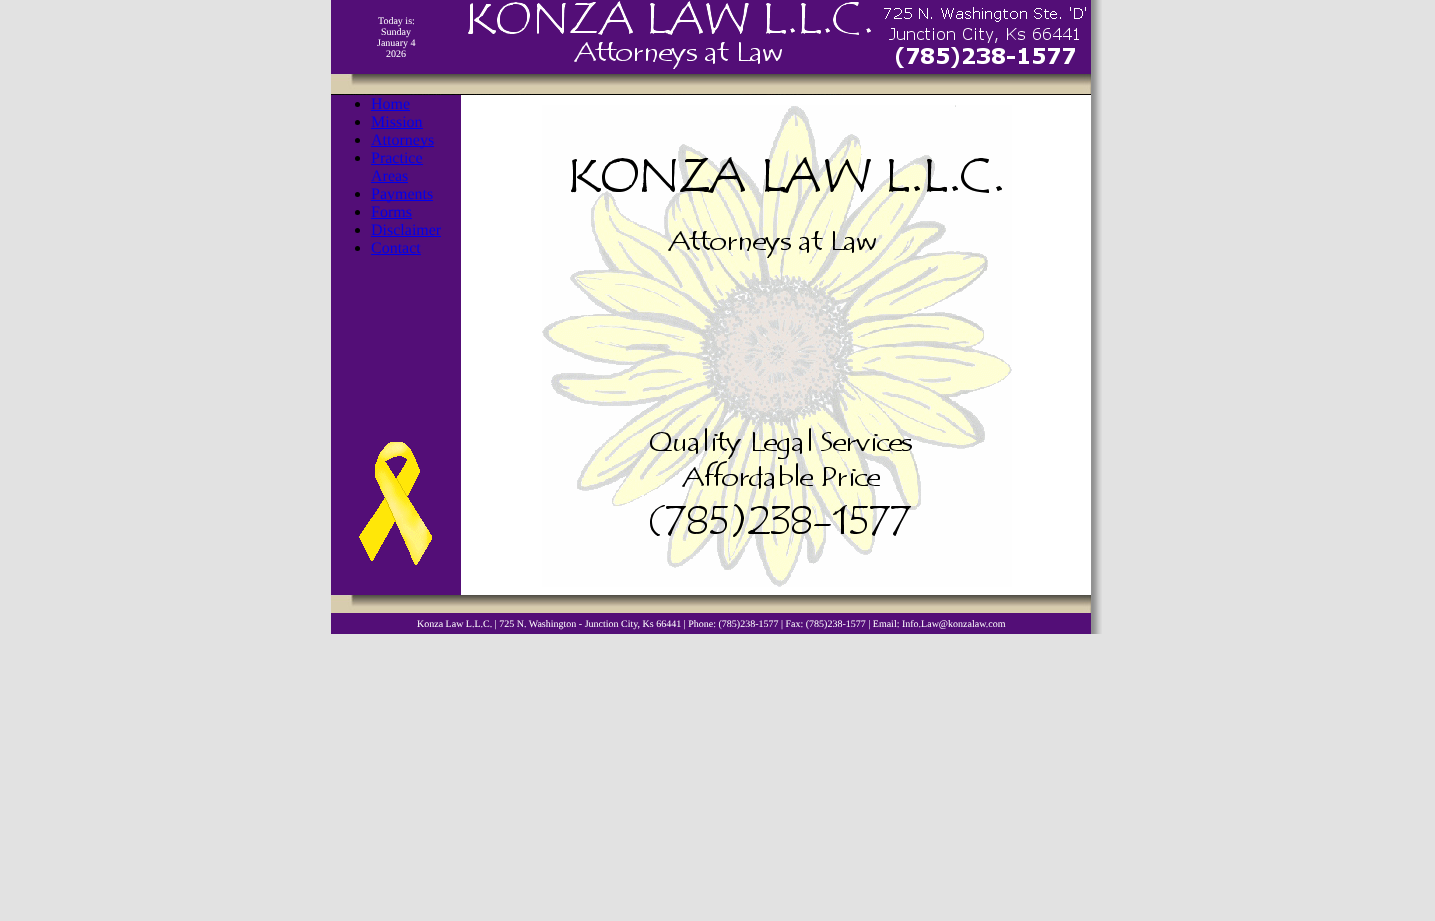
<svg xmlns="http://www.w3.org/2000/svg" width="1435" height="921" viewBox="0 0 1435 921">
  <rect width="100%" height="100%" fill="#e2e2e2"/>
  <path d="M331 0h760v74H331z" fill="#530e77"/>
  <image x="468" y="1" width="618" height="68" href="img/1.png"/>
  <image x="1091" y="0" width="11" height="95" href="img/2.png"/>
  <image x="331" y="74" width="760" height="21" href="img/3.png"/>
  <path d="M331 95h130v500H331z" fill="#530e77"/>
  <circle cx="357.5" cy="104.5" r="2.5" fill="#000"/>
  <path d="M371 110h39v1H371z" fill="#00e"/>
  <circle cx="357.5" cy="122.5" r="2.5" fill="#000"/>
  <path d="M371 128h52v1H371z" fill="#00e"/>
  <circle cx="357.5" cy="140.5" r="2.5" fill="#000"/>
  <path d="M371 146h63v1H371z" fill="#00e"/>
  <circle cx="357.5" cy="158.5" r="2.5" fill="#000"/>
  <path d="M371 164h52v1H371z" fill="#00e"/>
  <path d="M371 182h37v1H371z" fill="#00e"/>
  <circle cx="357.5" cy="194.5" r="2.5" fill="#000"/>
  <path d="M371 200h62v1H371z" fill="#00e"/>
  <circle cx="357.5" cy="212.5" r="2.5" fill="#000"/>
  <path d="M371 218h41v1H371z" fill="#00e"/>
  <circle cx="357.5" cy="230.5" r="2.5" fill="#000"/>
  <path d="M371 236h70v1H371z" fill="#00e"/>
  <circle cx="357.5" cy="248.5" r="2.5" fill="#000"/>
  <path d="M371 254h50v1H371z" fill="#00e"/>
  <image x="359" y="442" width="73" height="123" href="img/4.png"/>
  <path d="M461 95h630v500H461z" fill="#fff"/>
  <image x="542" y="105" width="470" height="482" href="img/5.png"/>
  <image x="1091" y="95" width="11" height="500" href="img/6.png"/>
  <image x="331" y="595" width="760" height="18" href="img/7.png"/>
  <image x="1091" y="595" width="11" height="18" href="img/8.png"/>
  <path d="M331 613h760v21H331z" fill="#530e77"/>
  <image x="1091" y="613" width="11" height="21" href="img/9.png"/>
  <g font-family="Liberation Serif" font-size="10" fill="#fff">
    <text x="378" y="24">Today is:</text>
    <text x="381" y="35">Sunday</text>
    <text x="377" y="46">January 4</text>
    <text x="386" y="57">2026</text>
  </g>
  <g font-family="Liberation Serif" font-size="16" fill="#00e">
    <text x="371" y="109">Home</text>
    <text x="371" y="127">Mission</text>
    <text x="371" y="145">Attorneys</text>
    <text x="371" y="163">Practice</text>
    <text x="371" y="181">Areas</text>
    <text x="371" y="199">Payments</text>
    <text x="371" y="217">Forms</text>
    <text x="371" y="235">Disclaimer</text>
    <text x="371" y="253">Contact</text>
  </g>
  <text x="417" y="627" font-family="Liberation Serif" font-size="10" fill="#fff">Konza Law L.L.C. | 725 N. Washington - Junction City, Ks 66441 | Phone: (785)238-1577 | Fax: (785)238-1577 | Email: Info.Law@konzalaw.com</text>
</svg>
